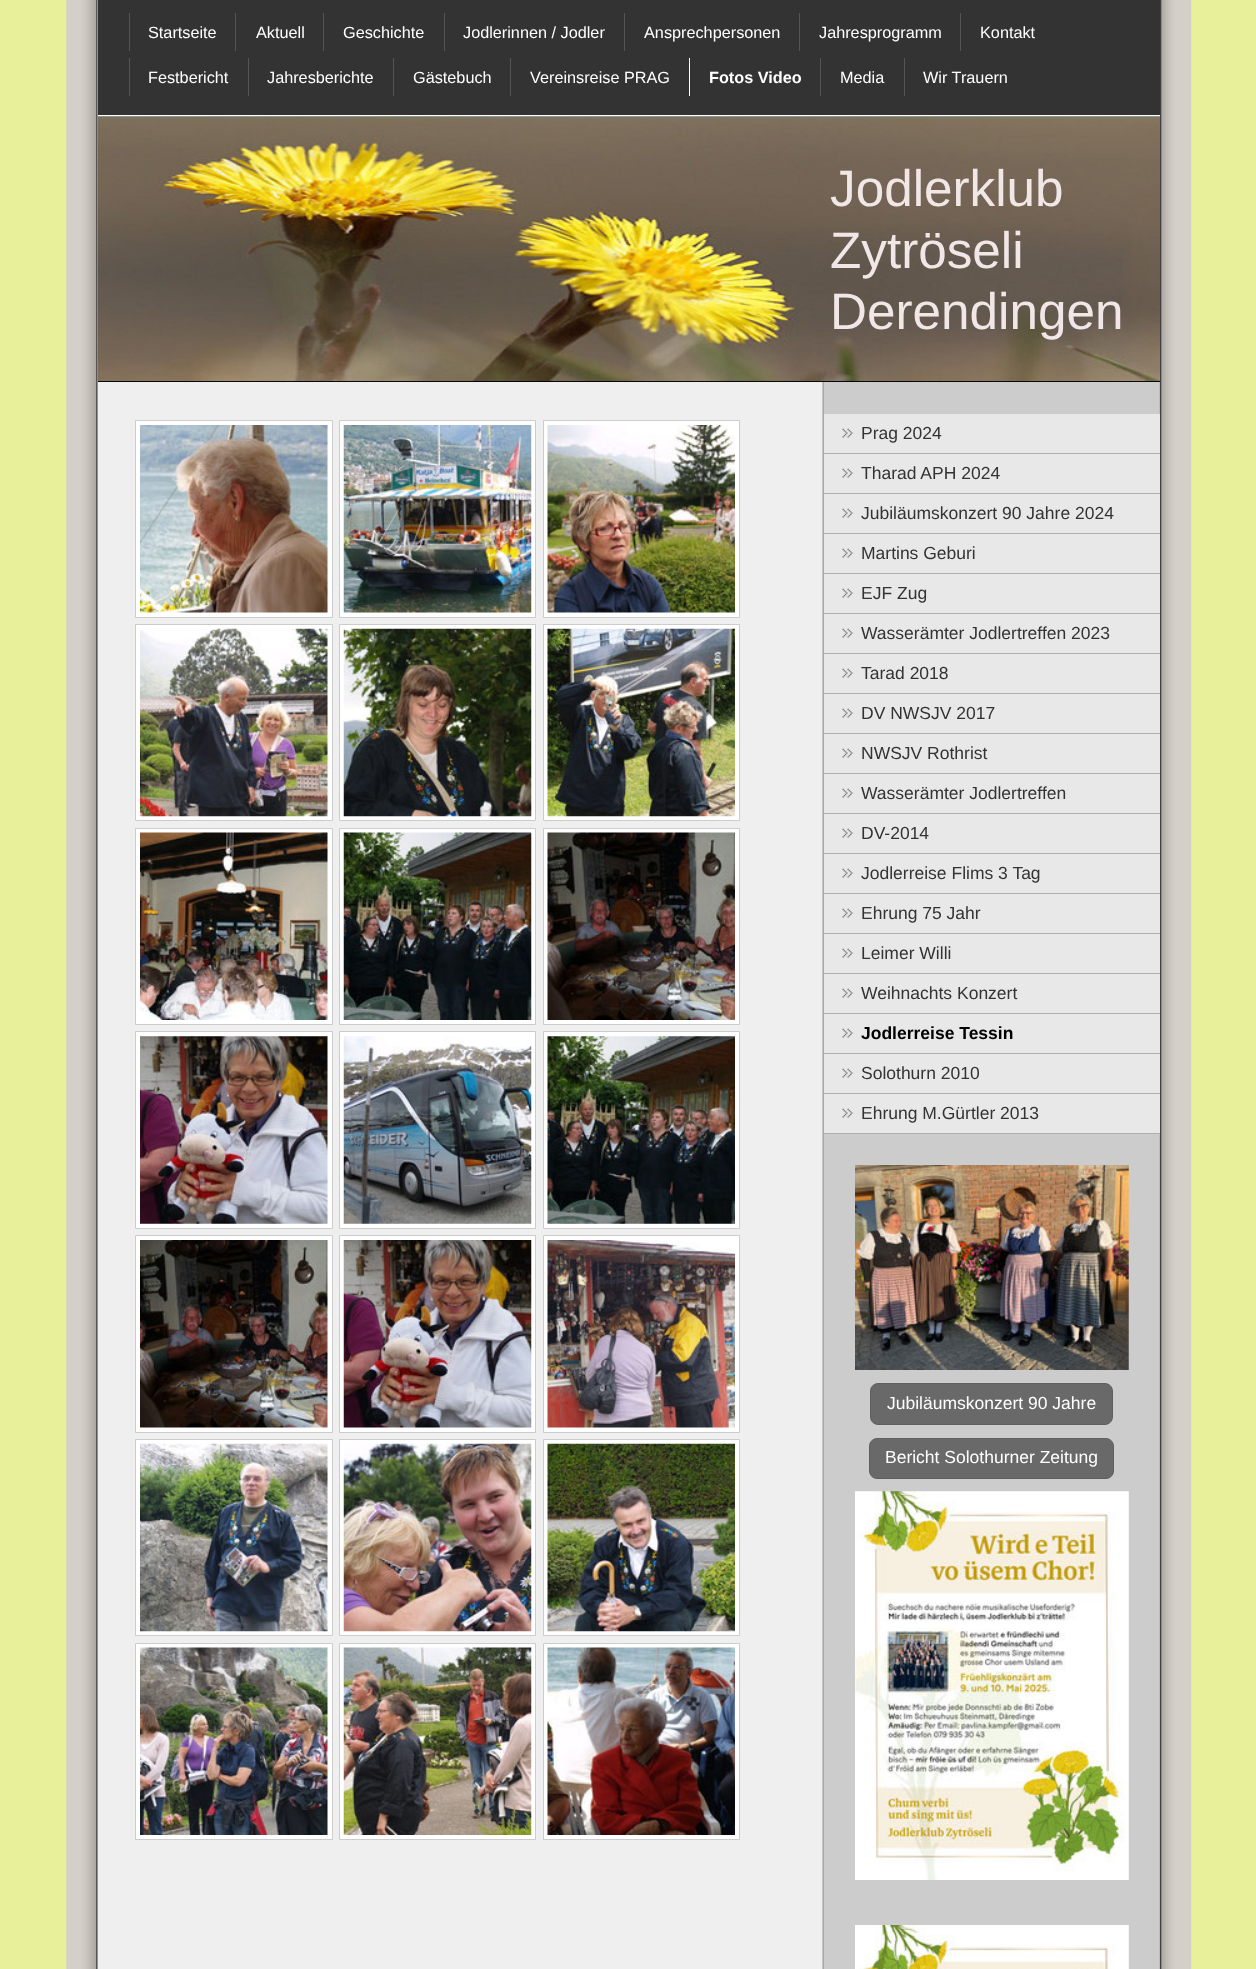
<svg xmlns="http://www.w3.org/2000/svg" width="1256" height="1969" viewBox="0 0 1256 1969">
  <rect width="100%" height="100%" fill="#e9f09a"/>
  <image x="66" y="0" width="1126" height="1969" href="img/1.png"/>
  <path d="M98 0h1062v115H98z" fill="#333"/>
  <path d="M98 115h1062v1H98z" fill="#fff"/>
  <path d="M129 13h1v38H129z" fill="#555"/>
  <path d="M235 13h1v38H235z" fill="#555"/>
  <path d="M323 13h1v38H323z" fill="#555"/>
  <path d="M444 13h1v38H444z" fill="#555"/>
  <path d="M624 13h1v38H624z" fill="#555"/>
  <path d="M799 13h1v38H799z" fill="#555"/>
  <path d="M960 13h1v38H960z" fill="#555"/>
  <path d="M129 58h1v38H129z" fill="#555"/>
  <path d="M248 58h1v38H248z" fill="#555"/>
  <path d="M393 58h1v38H393z" fill="#555"/>
  <path d="M510 58h1v38H510z" fill="#555"/>
  <path d="M689 58h1v38H689z" fill="#fff"/>
  <path d="M820 58h1v38H820z" fill="#555"/>
  <path d="M904 58h1v38H904z" fill="#555"/>
  <path d="M98 381h1062v1H98z" fill="#000"/>
  <path d="M98 116h1062v1H98z" fill="#89cece"/>
  <image x="97" y="116" width="1063" height="266" href="img/2.png"/>
  <path d="M135.5 420.5h197v197H135.5z" fill="#fff" stroke="#ccc"/>
  <image x="140" y="425" width="188" height="188" href="img/3.png"/>
  <path d="M339.5 420.5h196v197H339.5z" fill="#fff" stroke="#ccc"/>
  <image x="343" y="425" width="189" height="188" href="img/4.png"/>
  <path d="M543.5 420.5h196v197H543.5z" fill="#fff" stroke="#ccc"/>
  <image x="547" y="425" width="188" height="188" href="img/5.png"/>
  <path d="M135.5 624.5h197v196H135.5z" fill="#fff" stroke="#ccc"/>
  <image x="140" y="628" width="188" height="189" href="img/6.png"/>
  <path d="M339.5 624.5h196v196H339.5z" fill="#fff" stroke="#ccc"/>
  <image x="343" y="628" width="189" height="189" href="img/7.png"/>
  <path d="M543.5 624.5h196v196H543.5z" fill="#fff" stroke="#ccc"/>
  <image x="547" y="628" width="188" height="189" href="img/8.png"/>
  <path d="M135.5 828.5h197v196H135.5z" fill="#fff" stroke="#ccc"/>
  <image x="140" y="832" width="188" height="188" href="img/9.png"/>
  <path d="M339.5 828.5h196v196H339.5z" fill="#fff" stroke="#ccc"/>
  <image x="343" y="832" width="189" height="188" href="img/10.png"/>
  <path d="M543.5 828.5h196v196H543.5z" fill="#fff" stroke="#ccc"/>
  <image x="547" y="832" width="188" height="188" href="img/11.png"/>
  <path d="M135.5 1031.5h197v197H135.5z" fill="#fff" stroke="#ccc"/>
  <image x="140" y="1036" width="188" height="188" href="img/12.png"/>
  <path d="M339.5 1031.5h196v197H339.5z" fill="#fff" stroke="#ccc"/>
  <image x="343" y="1036" width="189" height="188" href="img/13.png"/>
  <path d="M543.5 1031.5h196v197H543.5z" fill="#fff" stroke="#ccc"/>
  <image x="547" y="1036" width="188" height="188" href="img/14.png"/>
  <path d="M135.5 1235.5h197v197H135.5z" fill="#fff" stroke="#ccc"/>
  <image x="140" y="1240" width="188" height="188" href="img/15.png"/>
  <path d="M339.5 1235.5h196v197H339.5z" fill="#fff" stroke="#ccc"/>
  <image x="343" y="1240" width="189" height="188" href="img/16.png"/>
  <path d="M543.5 1235.5h196v197H543.5z" fill="#fff" stroke="#ccc"/>
  <image x="547" y="1240" width="188" height="188" href="img/17.png"/>
  <path d="M135.5 1439.5h197v196H135.5z" fill="#fff" stroke="#ccc"/>
  <image x="140" y="1443" width="188" height="189" href="img/18.png"/>
  <path d="M339.5 1439.5h196v196H339.5z" fill="#fff" stroke="#ccc"/>
  <image x="343" y="1443" width="189" height="189" href="img/19.png"/>
  <path d="M543.5 1439.5h196v196H543.5z" fill="#fff" stroke="#ccc"/>
  <image x="547" y="1443" width="188" height="189" href="img/20.png"/>
  <path d="M135.5 1643.5h197v196H135.5z" fill="#fff" stroke="#ccc"/>
  <image x="140" y="1647" width="188" height="188" href="img/21.png"/>
  <path d="M339.5 1643.5h196v196H339.5z" fill="#fff" stroke="#ccc"/>
  <image x="343" y="1647" width="189" height="188" href="img/22.png"/>
  <path d="M543.5 1643.5h196v196H543.5z" fill="#fff" stroke="#ccc"/>
  <image x="547" y="1647" width="188" height="188" href="img/23.png"/>
  <path d="M824 414h336v39H824z" fill="#e8e8e8"/>
  <image x="842" y="428" width="11" height="10" href="img/24.png"/>
  <path d="M824 453h336v1H824z" fill="#b0b0b0"/>
  <path d="M824 454h336v39H824z" fill="#e8e8e8"/>
  <image x="842" y="468" width="11" height="10" href="img/24.png"/>
  <path d="M824 493h336v1H824z" fill="#b0b0b0"/>
  <path d="M824 494h336v39H824z" fill="#e8e8e8"/>
  <image x="842" y="508" width="11" height="10" href="img/24.png"/>
  <path d="M824 533h336v1H824z" fill="#b0b0b0"/>
  <path d="M824 534h336v39H824z" fill="#e8e8e8"/>
  <image x="842" y="548" width="11" height="10" href="img/24.png"/>
  <path d="M824 573h336v1H824z" fill="#b0b0b0"/>
  <path d="M824 574h336v39H824z" fill="#e8e8e8"/>
  <image x="842" y="588" width="11" height="10" href="img/24.png"/>
  <path d="M824 613h336v1H824z" fill="#b0b0b0"/>
  <path d="M824 614h336v39H824z" fill="#e8e8e8"/>
  <image x="842" y="628" width="11" height="10" href="img/24.png"/>
  <path d="M824 653h336v1H824z" fill="#b0b0b0"/>
  <path d="M824 654h336v39H824z" fill="#e8e8e8"/>
  <image x="842" y="668" width="11" height="10" href="img/24.png"/>
  <path d="M824 693h336v1H824z" fill="#b0b0b0"/>
  <path d="M824 694h336v39H824z" fill="#e8e8e8"/>
  <image x="842" y="708" width="11" height="10" href="img/24.png"/>
  <path d="M824 733h336v1H824z" fill="#b0b0b0"/>
  <path d="M824 734h336v39H824z" fill="#e8e8e8"/>
  <image x="842" y="748" width="11" height="10" href="img/24.png"/>
  <path d="M824 773h336v1H824z" fill="#b0b0b0"/>
  <path d="M824 774h336v39H824z" fill="#e8e8e8"/>
  <image x="842" y="788" width="11" height="10" href="img/24.png"/>
  <path d="M824 813h336v1H824z" fill="#b0b0b0"/>
  <path d="M824 814h336v39H824z" fill="#e8e8e8"/>
  <image x="842" y="828" width="11" height="10" href="img/24.png"/>
  <path d="M824 853h336v1H824z" fill="#b0b0b0"/>
  <path d="M824 854h336v39H824z" fill="#e8e8e8"/>
  <image x="842" y="868" width="11" height="10" href="img/24.png"/>
  <path d="M824 893h336v1H824z" fill="#b0b0b0"/>
  <path d="M824 894h336v39H824z" fill="#e8e8e8"/>
  <image x="842" y="908" width="11" height="10" href="img/24.png"/>
  <path d="M824 933h336v1H824z" fill="#b0b0b0"/>
  <path d="M824 934h336v39H824z" fill="#e8e8e8"/>
  <image x="842" y="948" width="11" height="10" href="img/24.png"/>
  <path d="M824 973h336v1H824z" fill="#b0b0b0"/>
  <path d="M824 974h336v39H824z" fill="#e8e8e8"/>
  <image x="842" y="988" width="11" height="10" href="img/24.png"/>
  <path d="M824 1013h336v1H824z" fill="#b0b0b0"/>
  <path d="M824 1014h336v39H824z" fill="#e8e8e8"/>
  <image x="842" y="1028" width="11" height="10" href="img/24.png"/>
  <path d="M824 1053h336v1H824z" fill="#b0b0b0"/>
  <path d="M824 1054h336v39H824z" fill="#e8e8e8"/>
  <image x="842" y="1068" width="11" height="10" href="img/24.png"/>
  <path d="M824 1093h336v1H824z" fill="#b0b0b0"/>
  <path d="M824 1094h336v39H824z" fill="#e8e8e8"/>
  <image x="842" y="1108" width="11" height="10" href="img/24.png"/>
  <path d="M824 1133h336v1H824z" fill="#b0b0b0"/>
  <image x="855" y="1165" width="274" height="205" href="img/25.png"/>
  <rect x="870.5" y="1383.5" width="242" height="41" rx="7.5" fill="#696969" stroke="#5f5f5f"/>
  <rect x="869.5" y="1438.5" width="244" height="40" rx="7.5" fill="#696969" stroke="#5f5f5f"/>
  <image x="855" y="1491" width="274" height="389" href="img/26.png"/>
  <image x="855" y="1925" width="274" height="44" href="img/27.png"/>
  <g font-family="Liberation Sans" font-size="16.25" fill="#fff">
    <text x="148" y="38">Startseite</text>
    <text x="256" y="38">Aktuell</text>
    <text x="343" y="38">Geschichte</text>
    <text x="463" y="38">Jodlerinnen / Jodler</text>
    <text x="644" y="38">Ansprechpersonen</text>
    <text x="819" y="38">Jahresprogramm</text>
    <text x="980" y="38">Kontakt</text>
    <text x="148" y="83">Festbericht</text>
    <text x="267" y="83">Jahresberichte</text>
    <text x="413" y="83">Gästebuch</text>
    <text x="530" y="83">Vereinsreise PRAG</text>
  </g>
  <text x="709" y="83" font-family="Liberation Sans" font-size="16.25" font-weight="bold" fill="#fff">Fotos Video</text>
  <g font-family="Liberation Sans" font-size="16.25" fill="#fff">
    <text x="840" y="83">Media</text>
    <text x="923" y="83">Wir Trauern</text>
  </g>
  <g font-family="Liberation Sans" font-size="51.25" fill="#f1e7e6">
    <text x="830" y="206">Jodlerklub</text>
    <text x="830" y="268">Zytröseli</text>
    <text x="830" y="329">Derendingen</text>
  </g>
  <g font-family="Liberation Sans" font-size="17.5" fill="#333">
    <text x="861" y="439">Prag 2024</text>
    <text x="861" y="479">Tharad APH 2024</text>
    <text x="861" y="519">Jubiläumskonzert 90 Jahre 2024</text>
    <text x="861" y="559">Martins Geburi</text>
    <text x="861" y="599">EJF Zug</text>
    <text x="861" y="639">Wasserämter Jodlertreffen 2023</text>
    <text x="861" y="679">Tarad 2018</text>
    <text x="861" y="719">DV NWSJV 2017</text>
    <text x="861" y="759">NWSJV Rothrist</text>
    <text x="861" y="799">Wasserämter Jodlertreffen</text>
    <text x="861" y="839">DV-2014</text>
    <text x="861" y="879">Jodlerreise Flims 3 Tag</text>
    <text x="861" y="919">Ehrung 75 Jahr</text>
    <text x="861" y="959">Leimer Willi</text>
    <text x="861" y="999">Weihnachts Konzert</text>
  </g>
  <text x="861" y="1039" font-family="Liberation Sans" font-size="17.5" font-weight="bold" fill="#000">Jodlerreise Tessin</text>
  <g font-family="Liberation Sans" font-size="17.5" fill="#333">
    <text x="861" y="1079">Solothurn 2010</text>
    <text x="861" y="1119">Ehrung M.Gürtler 2013</text>
  </g>
  <g font-family="Liberation Sans" font-size="17.5" fill="#fff">
    <text x="887" y="1409">Jubiläumskonzert 90 Jahre</text>
    <text x="885" y="1463">Bericht Solothurner Zeitung</text>
  </g>
</svg>
